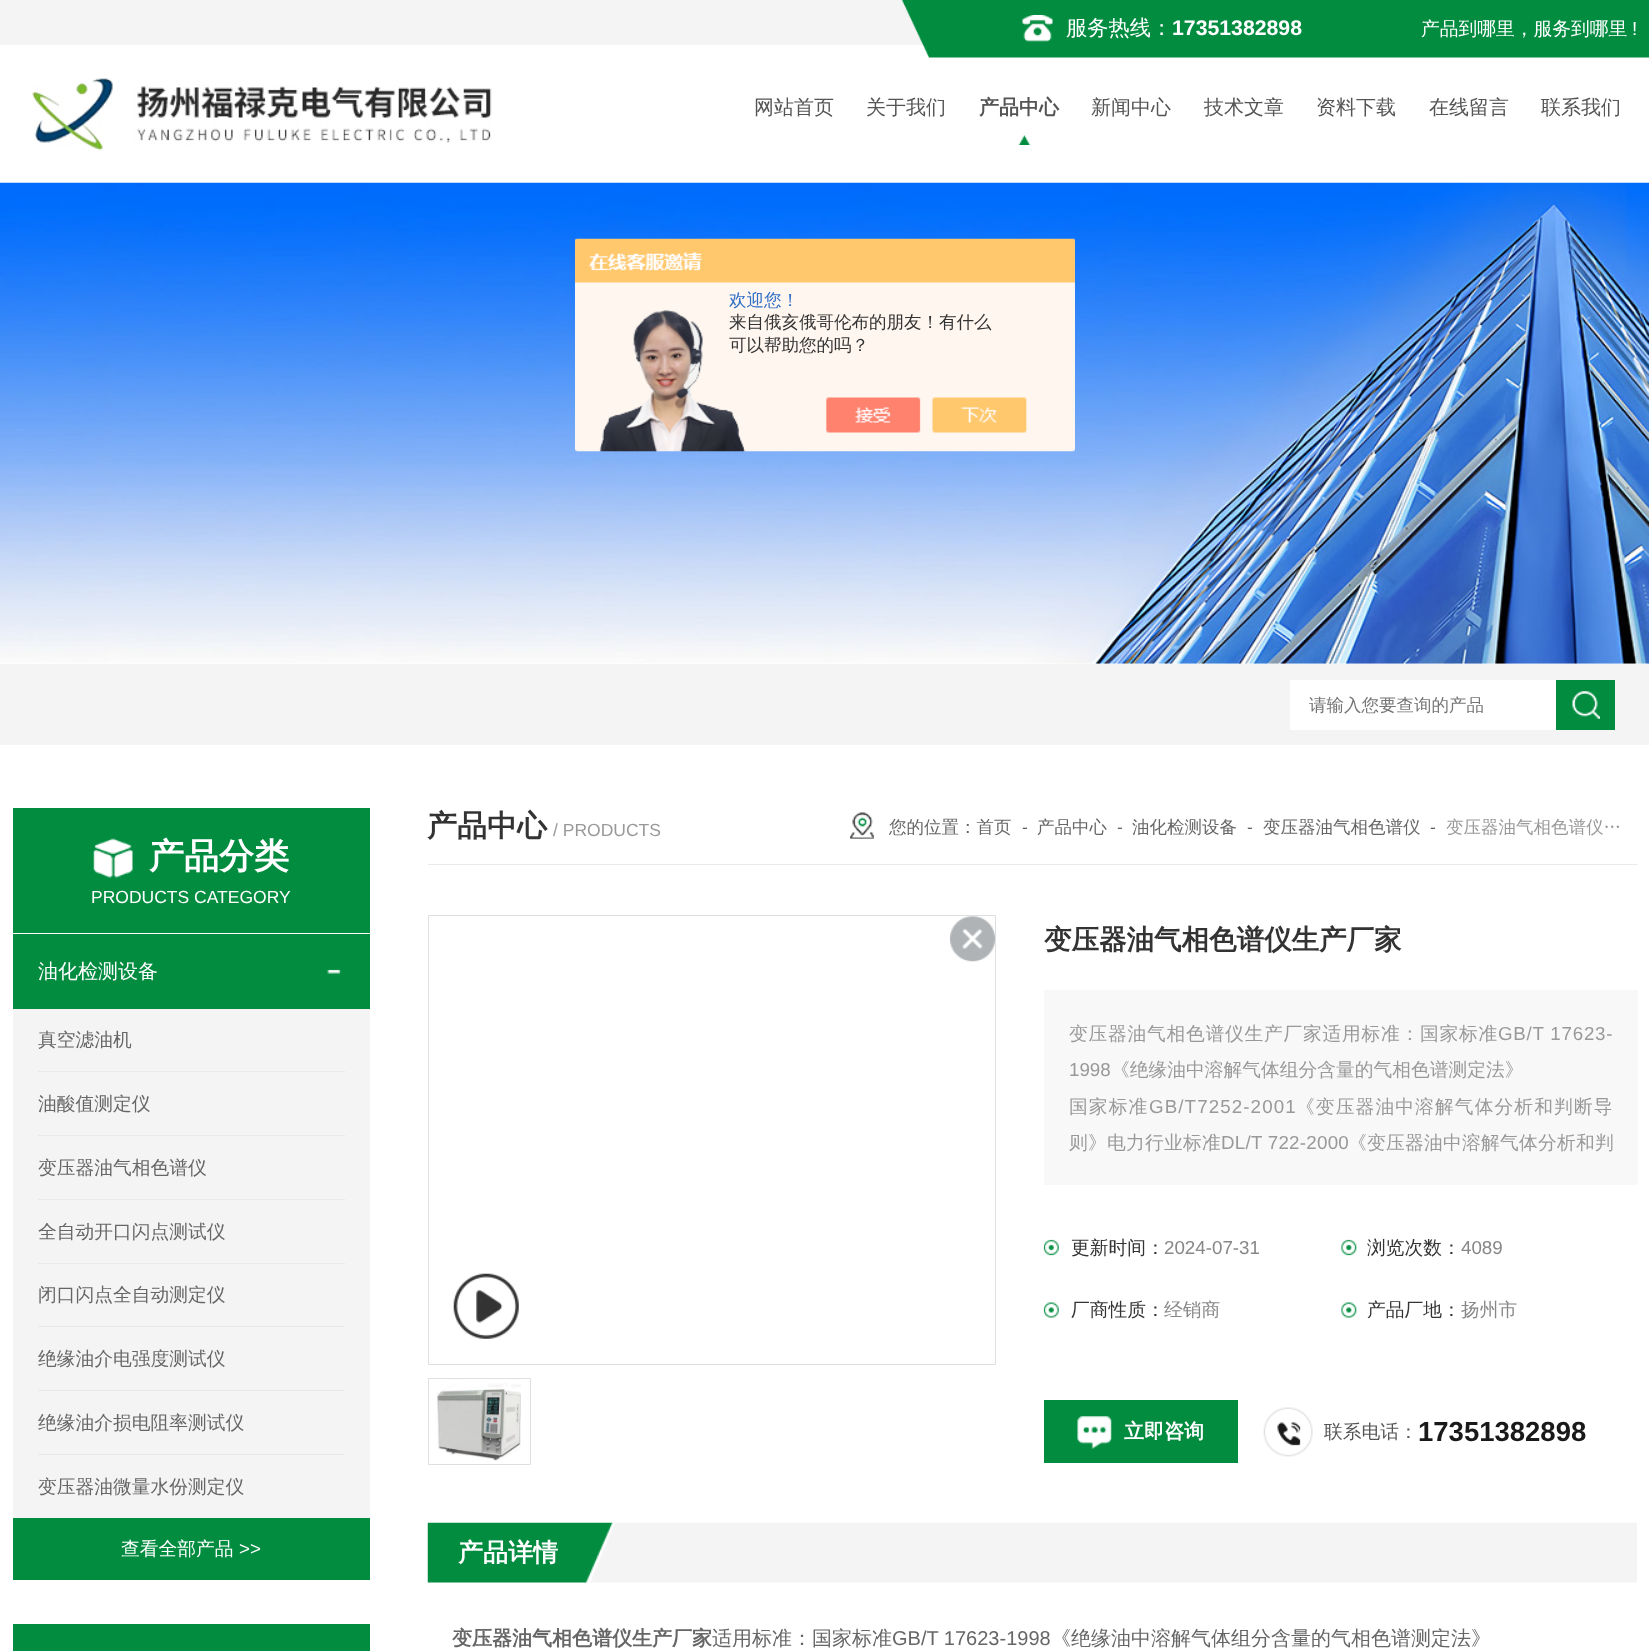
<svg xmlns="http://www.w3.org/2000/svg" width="1649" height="1651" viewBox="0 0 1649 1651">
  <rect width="100%" height="100%" fill="#fff"/>
  <image x="0" y="0" width="1649" height="58" href="img/1.png"/>
  <image x="1022" y="15" width="31" height="27" href="img/2.png"/>
  <image x="32" y="78" width="460" height="73" href="img/3.png"/>
  <image x="1018" y="135" width="12" height="10" href="img/4.png"/>
  <image x="0" y="182" width="1649" height="482" href="img/5.png"/>
  <image x="575" y="238" width="500" height="214" href="img/6.png"/>
  <path d="M0 664h1649v81H0z" fill="#f4f4f4"/>
  <path d="M1290 680h266v50H1290z" fill="#fff"/>
  <path d="M1556 680h59v50H1556z" fill="#028c40"/>
  <image x="1572" y="691" width="28" height="28" href="img/7.png"/>
  <path d="M13 808h357v125H13z" fill="#028c40"/>
  <image x="93" y="838" width="40" height="40" href="img/8.png"/>
  <path d="M13 1009h357v509H13z" fill="#f4f4f4"/>
  <path d="M13 934h357v75H13z" fill="#028c40"/>
  <image x="327" y="969" width="14" height="5" href="img/9.png"/>
  <path d="M38 1071h307v1H38z" fill="#e9e9e9"/>
  <path d="M38 1135h307v1H38z" fill="#e9e9e9"/>
  <path d="M38 1199h307v1H38z" fill="#e9e9e9"/>
  <path d="M38 1263h307v1H38z" fill="#e9e9e9"/>
  <path d="M38 1326h307v1H38z" fill="#e9e9e9"/>
  <path d="M38 1390h307v1H38z" fill="#e9e9e9"/>
  <path d="M38 1454h307v1H38z" fill="#e9e9e9"/>
  <path d="M13 1518h357v62H13z" fill="#028c40"/>
  <path d="M13 1624h357v27H13z" fill="#028c40"/>
  <path d="M428 864h1210v1H428z" fill="#eaeaea"/>
  <image x="850" y="812" width="24" height="27" href="img/10.png"/>
  <path d="M428.5 915.5h567v449H428.5z" fill="none" stroke="#dfdfdf"/>
  <image x="950" y="916" width="45" height="46" href="img/11.png"/>
  <image x="453" y="1273" width="66" height="66" href="img/12.png"/>
  <path d="M428.5 1378.5h102v86H428.5z" fill="none" stroke="#dfdfdf"/>
  <image x="436" y="1383" width="85" height="78" href="img/13.png"/>
  <path d="M1044 990h594v195H1044z" fill="#f8f8f8"/>
  <image x="1043" y="1239" width="16" height="17" href="img/14.png"/>
  <image x="1341" y="1239" width="16" height="17" href="img/15.png"/>
  <image x="1043" y="1302" width="16" height="16" href="img/16.png"/>
  <image x="1341" y="1302" width="16" height="16" href="img/17.png"/>
  <path d="M1044 1400h194v63H1044z" fill="#028c40"/>
  <image x="1077" y="1416" width="35" height="33" href="img/18.png"/>
  <image x="1263" y="1407" width="50" height="50" href="img/19.png"/>
  <image x="427" y="1522" width="1210" height="61" href="img/20.png"/>
  <text x="1066" y="35" font-family="WenQuanYi Zen Hei" font-size="21.25" font-weight="500" fill="#fff">服务热线：</text>
  <text x="1172" y="35" font-family="Liberation Sans" font-size="21.25" font-weight="bold" fill="#fff">17351382898</text>
  <text x="1421" y="35" font-family="WenQuanYi Zen Hei" font-size="18.75" font-weight="500" fill="#fff">产品到哪里，服务到哪里</text>
  <text x="1632" y="35" font-family="Liberation Sans" font-size="18.75" fill="#fff">!</text>
  <g font-family="WenQuanYi Zen Hei" font-size="20" font-weight="500" fill="#555">
    <text x="754" y="114">网站首页</text>
    <text x="866" y="114">关于我们</text>
  </g>
  <text x="979" y="114" font-family="WenQuanYi Zen Hei" font-size="20" font-weight="bold" fill="#555">产品中心</text>
  <g font-family="WenQuanYi Zen Hei" font-size="20" font-weight="500" fill="#555">
    <text x="1091" y="114">新闻中心</text>
    <text x="1204" y="114">技术文章</text>
    <text x="1316" y="114">资料下载</text>
    <text x="1429" y="114">在线留言</text>
    <text x="1541" y="114">联系我们</text>
  </g>
  <text x="729" y="306" font-family="WenQuanYi Zen Hei" font-size="17.5" font-weight="500" fill="#2e6ec6">欢迎您！</text>
  <g font-family="WenQuanYi Zen Hei" font-size="17.5" font-weight="500" fill="#333">
    <text x="729" y="328">来自俄亥俄哥伦布的朋友！有什么</text>
    <text x="729" y="351">可以帮助您的吗？</text>
  </g>
  <text x="1309" y="711" font-family="WenQuanYi Zen Hei" font-size="17.5" font-weight="500" fill="#757575">请输入您要查询的产品</text>
  <text x="149" y="868" font-family="WenQuanYi Zen Hei" font-size="35" font-weight="bold" fill="#fff">产品分类</text>
  <text x="91" y="903" font-family="Liberation Sans" font-size="17.5" fill="#fff">PRODUCTS CATEGORY</text>
  <text x="38" y="978" font-family="WenQuanYi Zen Hei" font-size="20" font-weight="500" fill="#fff">油化检测设备</text>
  <g font-family="WenQuanYi Zen Hei" font-size="18.75" font-weight="500" fill="#666">
    <text x="38" y="1046">真空滤油机</text>
    <text x="38" y="1110">油酸值测定仪</text>
    <text x="38" y="1174">变压器油气相色谱仪</text>
    <text x="38" y="1238">全自动开口闪点测试仪</text>
    <text x="38" y="1301">闭口闪点全自动测定仪</text>
    <text x="38" y="1365">绝缘油介电强度测试仪</text>
    <text x="38" y="1429">绝缘油介损电阻率测试仪</text>
    <text x="38" y="1493">变压器油微量水份测定仪</text>
  </g>
  <text x="121" y="1555" font-family="WenQuanYi Zen Hei" font-size="18.75" font-weight="500" fill="#fff">查看全部产品</text>
  <text x="239" y="1555" font-family="Liberation Sans" font-size="18.75" fill="#fff">&gt;&gt;</text>
  <text x="427" y="836" font-family="WenQuanYi Zen Hei" font-size="30" font-weight="bold" fill="#333">产品中心</text>
  <text x="553" y="836" font-family="Liberation Sans" font-size="17.5" fill="#999">/ PRODUCTS</text>
  <text x="889" y="833" font-family="WenQuanYi Zen Hei" font-size="17.5" font-weight="500" fill="#666">您的位置：首页</text>
  <text x="1022" y="833" font-family="Liberation Sans" font-size="17.5" fill="#666">-</text>
  <text x="1037" y="833" font-family="WenQuanYi Zen Hei" font-size="17.5" font-weight="500" fill="#666">产品中心</text>
  <text x="1117" y="833" font-family="Liberation Sans" font-size="17.5" fill="#666">-</text>
  <text x="1132" y="833" font-family="WenQuanYi Zen Hei" font-size="17.5" font-weight="500" fill="#666">油化检测设备</text>
  <text x="1247" y="833" font-family="Liberation Sans" font-size="17.5" fill="#666">-</text>
  <text x="1263" y="833" font-family="WenQuanYi Zen Hei" font-size="17.5" font-weight="500" fill="#666">变压器油气相色谱仪</text>
  <text x="1430" y="833" font-family="Liberation Sans" font-size="17.5" fill="#666">-</text>
  <text x="1446" y="833" font-family="WenQuanYi Zen Hei" font-size="17.5" font-weight="500" fill="#999">变压器油气相色谱仪…</text>
  <text x="1044" y="949" font-family="WenQuanYi Zen Hei" font-size="27.5" font-weight="bold" fill="#333">变压器油气相色谱仪生产厂家</text>
  <text x="1069" y="1040" font-family="WenQuanYi Zen Hei" font-size="18.75" font-weight="500" letter-spacing="0.75" fill="#999">变压器油气相色谱仪生产厂家适用标准：国家标准</text>
  <text x="1498" y="1040" font-family="Liberation Sans" font-size="18.75" letter-spacing="0.75" fill="#999">GB/T 17623-</text>
  <text x="1069" y="1076" font-family="Liberation Sans" font-size="18.75" fill="#999">1998</text>
  <text x="1111" y="1076" font-family="WenQuanYi Zen Hei" font-size="18.75" font-weight="500" fill="#999">《绝缘油中溶解气体组分含量的气相色谱测定法》</text>
  <text x="1069" y="1113" font-family="WenQuanYi Zen Hei" font-size="18.75" font-weight="500" letter-spacing="1.1" fill="#999">国家标准</text>
  <text x="1149" y="1113" font-family="Liberation Sans" font-size="18.75" letter-spacing="1.1" fill="#999">GB/T7252-2001</text>
  <text x="1296" y="1113" font-family="WenQuanYi Zen Hei" font-size="18.75" font-weight="500" letter-spacing="1.1" fill="#999">《变压器油中溶解气体分析和判断导</text>
  <text x="1069" y="1149" font-family="WenQuanYi Zen Hei" font-size="18.75" font-weight="500" letter-spacing="0.25" fill="#999">则》电力行业标准</text>
  <text x="1221" y="1149" font-family="Liberation Sans" font-size="18.75" letter-spacing="0.25" fill="#999">DL/T 722-2000</text>
  <text x="1348" y="1149" font-family="WenQuanYi Zen Hei" font-size="18.75" font-weight="500" letter-spacing="0.25" fill="#999">《变压器油中溶解气体分析和判</text>
  <text x="1071" y="1254" font-family="WenQuanYi Zen Hei" font-size="18.75" font-weight="500" fill="#333">更新时间：</text>
  <text x="1164" y="1254" font-family="Liberation Sans" font-size="18.75" fill="#888">2024-07-31</text>
  <text x="1367" y="1254" font-family="WenQuanYi Zen Hei" font-size="18.75" font-weight="500" fill="#333">浏览次数：</text>
  <text x="1461" y="1254" font-family="Liberation Sans" font-size="18.75" fill="#888">4089</text>
  <text x="1071" y="1316" font-family="WenQuanYi Zen Hei" font-size="18.75" font-weight="500" fill="#333">厂商性质：</text>
  <text x="1164" y="1316" font-family="WenQuanYi Zen Hei" font-size="18.75" font-weight="500" fill="#888">经销商</text>
  <text x="1367" y="1316" font-family="WenQuanYi Zen Hei" font-size="18.75" font-weight="500" fill="#333">产品厂地：</text>
  <text x="1461" y="1316" font-family="WenQuanYi Zen Hei" font-size="18.75" font-weight="500" fill="#888">扬州市</text>
  <text x="1124" y="1438" font-family="WenQuanYi Zen Hei" font-size="20" font-weight="bold" fill="#fff">立即咨询</text>
  <text x="1324" y="1438" font-family="WenQuanYi Zen Hei" font-size="18.75" font-weight="500" fill="#555">联系电话：</text>
  <text x="1418" y="1441" font-family="Liberation Sans" font-size="27.5" font-weight="bold" fill="#191919">17351382898</text>
  <text x="458" y="1561" font-family="WenQuanYi Zen Hei" font-size="25" font-weight="bold" fill="#fff">产品详情</text>
  <text x="452" y="1645" font-family="WenQuanYi Zen Hei" font-size="20" font-weight="bold" fill="#666">变压器油气相色谱仪生产厂家</text>
  <text x="712" y="1645" font-family="WenQuanYi Zen Hei" font-size="20" font-weight="500" fill="#666">适用标准：国家标准</text>
  <text x="892" y="1645" font-family="Liberation Sans" font-size="20" fill="#666">GB/T 17623-1998</text>
  <text x="1051" y="1645" font-family="WenQuanYi Zen Hei" font-size="20" font-weight="500" fill="#666">《绝缘油中溶解气体组分含量的气相色谱测定法》</text>
</svg>
